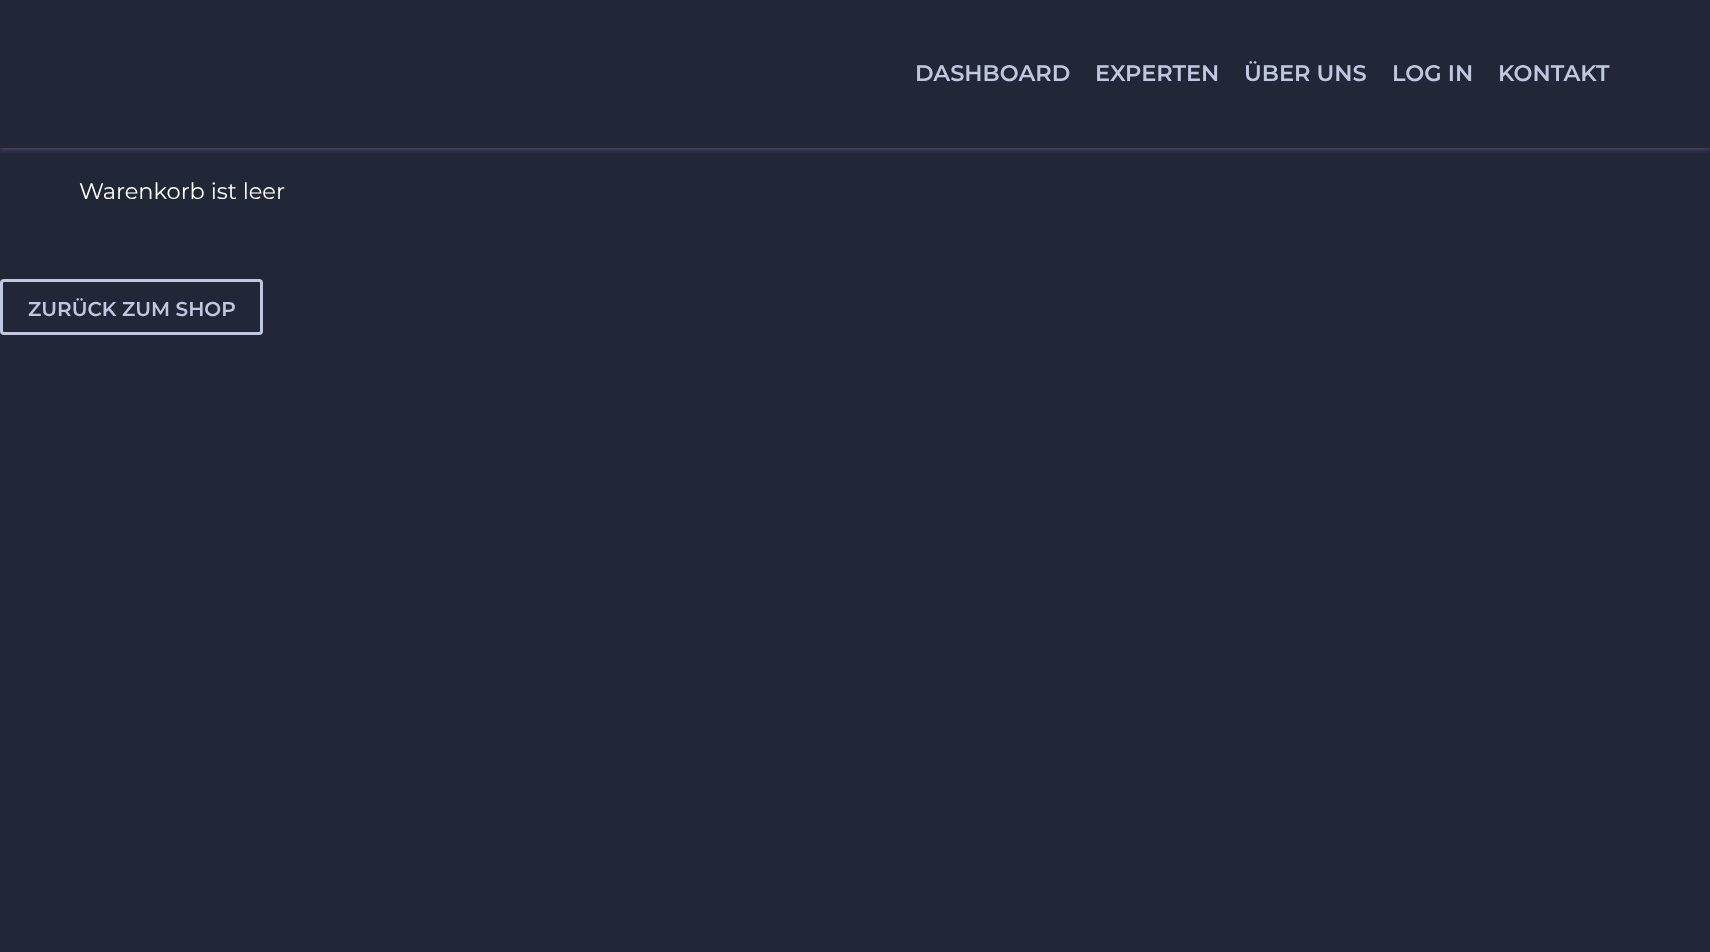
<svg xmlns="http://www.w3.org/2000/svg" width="1710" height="952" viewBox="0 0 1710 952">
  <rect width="100%" height="100%" fill="#212737"/>
  <path d="M0 1h1710v148H0z" fill="#846ba199" filter="blur(2.5px)"/>
  <path d="M0 0h1710v148H0z" fill="#212737"/>
  <rect x="1.5" y="280.5" width="260" height="53" rx="2.5" fill="none" stroke="#c0c7e0" stroke-width="3"/>
  <g font-family="Montserrat" font-size="22.5" font-weight="600" fill="#c0c7e0">
    <text x="915" y="81">DASHBOARD</text>
    <text x="1095" y="81">EXPERTEN</text>
    <text x="1244" y="81">ÜBER UNS</text>
    <text x="1392" y="81">LOG IN</text>
    <text x="1498" y="81">KONTAKT</text>
  </g>
  <text x="79" y="199" font-family="Montserrat" font-size="22.5" fill="#fff">Warenkorb ist leer</text>
  <text x="28" y="316" font-family="Montserrat" font-size="20" font-weight="600" fill="#c0c7e0">ZURÜCK ZUM SHOP</text>
</svg>
